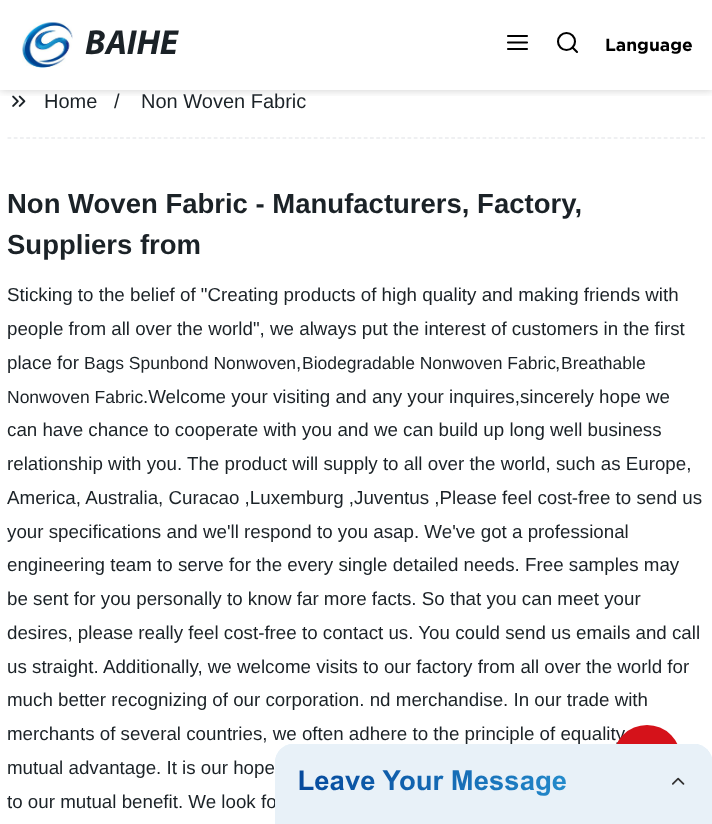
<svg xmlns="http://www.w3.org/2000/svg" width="712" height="824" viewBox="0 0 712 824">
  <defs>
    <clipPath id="clip1"><path d="M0 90h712v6H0z"/></clipPath>
  </defs>
  <rect width="100%" height="100%" fill="#fff"/>
  <image x="12" y="95" width="14" height="12" href="img/2.png"/>
  <g clip-path="url(#clip1)">
    <path d="M0 0h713v90H0z" fill="#00000033" filter="blur(5px)"/>
  </g>
  <image x="22" y="22" width="51" height="46" href="img/1.png"/>
  <path d="M508 42.5H527M508 36H527M508 49H527" fill="none" stroke="#000" stroke-width="2.1" stroke-linecap="round" stroke-linejoin="round"/>
  <circle cx="566.5" cy="41.5" r="8.5" fill="none" stroke="#000" stroke-width="2.1"/>
  <path d="M577 52L572.5 47.5" fill="none" stroke="#000" stroke-width="2.1" stroke-linecap="round" stroke-linejoin="round"/>
  <path d="M7.5 138H705" fill="none" stroke="#e0e1e5" stroke-width="1.2" stroke-dasharray="3.75 2.5"/>
  <text x="85" y="54" font-family="Myriad" font-size="35" font-weight="bold" font-style="italic" fill="#1b2227">BAIHE</text>
  <text x="605" y="51" font-family="Gotham" font-size="17.5" font-weight="bold" fill="#000">Language</text>
  <g font-family="Liberation Sans" font-size="20" fill="#1b2227">
    <text x="44" y="108">Home</text>
    <text x="114" y="108">/</text>
    <text x="141" y="108">Non Woven Fabric</text>
  </g>
  <g font-family="Liberation Sans" font-size="27.5" font-weight="bold" fill="#1b2227">
    <text x="7" y="213">Non Woven Fabric - Manufacturers, Factory,</text>
    <text x="7" y="254">Suppliers from</text>
  </g>
  <g font-family="Liberation Sans" font-size="18.75" fill="#1b2227">
    <text x="7" y="301">Sticking to the belief of "Creating products of high quality and making friends with</text>
    <text x="7" y="335">people from all over the world", we always put the interest of customers in the first</text>
    <text x="7" y="369">place for</text>
  </g>
  <text x="84" y="369" font-family="Liberation Sans" font-size="17.5" fill="#1b2227">Bags Spunbond Nonwoven</text>
  <text x="296" y="369" font-family="Liberation Sans" font-size="18.75" fill="#1b2227">,</text>
  <text x="302" y="369" font-family="Liberation Sans" font-size="17.5" fill="#1b2227">Biodegradable Nonwoven Fabric</text>
  <text x="555" y="369" font-family="Liberation Sans" font-size="18.75" fill="#1b2227">,</text>
  <g font-family="Liberation Sans" font-size="17.5" fill="#1b2227">
    <text x="561" y="369">Breathable</text>
    <text x="7" y="403">Nonwoven Fabric</text>
  </g>
  <g font-family="Liberation Sans" font-size="18.75" fill="#1b2227">
    <text x="143" y="403">.Welcome your visiting and any your inquires,sincerely hope we</text>
    <text x="7" y="436">can have chance to cooperate with you and we can build up long well business</text>
    <text x="7" y="470">relationship with you. The product will supply to all over the world, such as Europe,</text>
    <text x="7" y="504">America, Australia, Curacao ,Luxemburg ,Juventus ,Please feel cost-free to send us</text>
    <text x="7" y="538">your specifications and we'll respond to you asap. We've got a professional</text>
    <text x="7" y="571">engineering team to serve for the every single detailed needs. Free samples may</text>
    <text x="7" y="605">be sent for you personally to know far more facts. So that you can meet your</text>
    <text x="7" y="639">desires, please really feel cost-free to contact us. You could send us emails and call</text>
    <text x="7" y="673">us straight. Additionally, we welcome visits to our factory from all over the world for</text>
    <text x="7" y="706">much better recognizing of our corporation. nd merchandise. In our trade with</text>
    <text x="7" y="740">merchants of several countries, we often adhere to the principle of equality</text>
    <text x="7" y="774">mutual advantage. It is our hope</text>
    <text x="7" y="808">to our mutual benefit. We look fo</text>
  </g>
  <rect x="613" y="725" width="68" height="69" rx="34" fill="#d5121a"/>
  <image x="275" y="744" width="437" height="80" href="img/3.png"/>
</svg>
